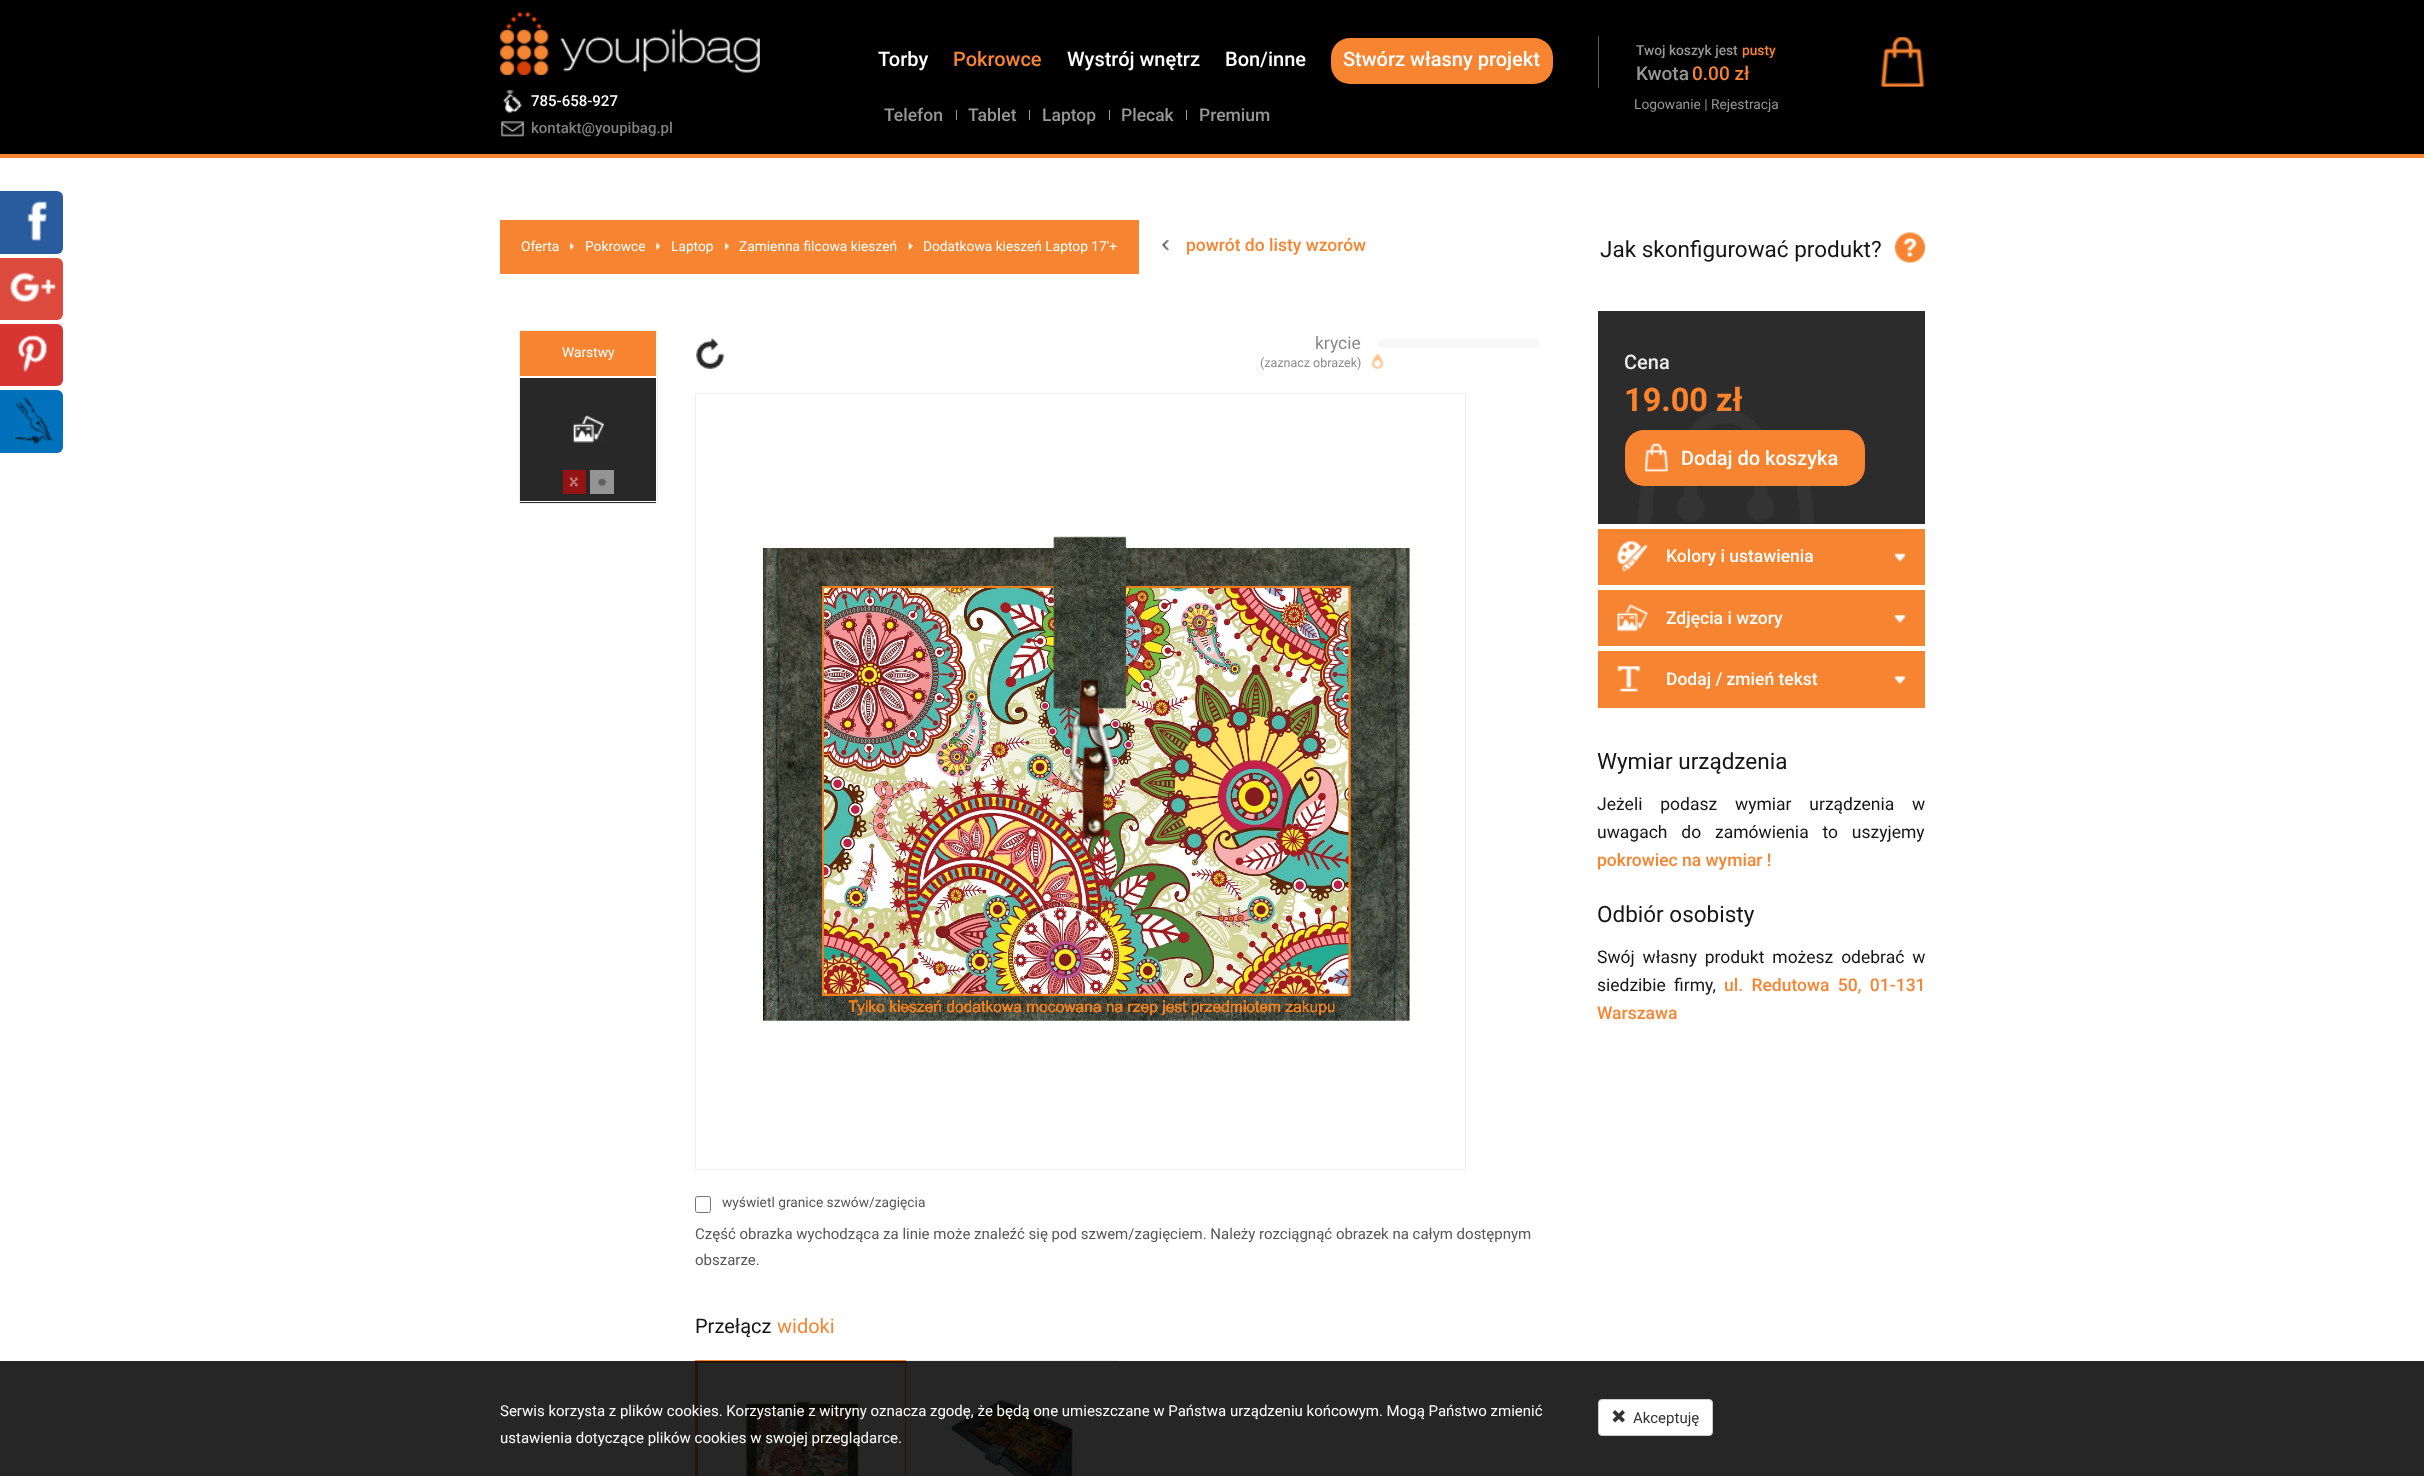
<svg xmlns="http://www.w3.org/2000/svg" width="2424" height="1476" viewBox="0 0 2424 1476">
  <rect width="100%" height="100%" fill="#fff"/>
  <path d="M0 1361h2424v115H0z" fill="#262626"/>
  <rect x="-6" y="191" width="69" height="63" rx="6" fill="#295c9e"/>
  <image x="27" y="201" width="21" height="40" href="img/1.png"/>
  <rect x="-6" y="258" width="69" height="62" rx="6" fill="#dc4a3d"/>
  <image x="9" y="272" width="47" height="30" href="img/2.png"/>
  <rect x="-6" y="324" width="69" height="62" rx="6" fill="#d73532"/>
  <image x="17" y="335" width="30" height="37" href="img/3.png"/>
  <rect x="-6" y="390" width="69" height="63" rx="6" fill="#0171bb"/>
  <image x="14" y="396" width="39" height="49" href="img/4.png"/>
  <path d="M0 0h2424v154H0z" fill="#000"/>
  <image x="500" y="12" width="260" height="63" href="img/5.png"/>
  <image x="503" y="89" width="19" height="24" href="img/6.png"/>
  <image x="501" y="121" width="23" height="16" href="img/7.png"/>
  <path d="M956 110h1v10H956z" fill="#979797"/>
  <path d="M1029 110h1v10H1029z" fill="#979797"/>
  <path d="M1109 110h1v10H1109z" fill="#979797"/>
  <path d="M1186 110h1v10H1186z" fill="#979797"/>
  <rect x="1331" y="38" width="222" height="46" rx="19" fill="#f78431"/>
  <image x="1881" y="37" width="43" height="50" href="img/8.png"/>
  <path d="M1598 36h1v52H1598z" fill="#5c5c5c"/>
  <path d="M0 154h2424v4H0z" fill="#f78431"/>
  <path d="M500 220h639v54H500z" fill="#f78431"/>
  <image x="569" y="242" width="5" height="9" href="img/9.png"/>
  <image x="656" y="242" width="5" height="9" href="img/10.png"/>
  <image x="724" y="242" width="5" height="9" href="img/9.png"/>
  <image x="908" y="242" width="5" height="9" href="img/11.png"/>
  <image x="1162" y="239" width="7" height="12" href="img/12.png"/>
  <image x="1895" y="232" width="30" height="31" href="img/13.png"/>
  <path d="M519.5 330.5h138v173H519.5z" fill="none" stroke="#eee"/>
  <path d="M520 331h136v45H520z" fill="#f78431"/>
  <path d="M520 378h136v125H520z" fill="#282828"/>
  <image x="573" y="415" width="31" height="28" href="img/14.png"/>
  <path d="M520 501h136v1H520z" fill="#fff"/>
  <path d="M563 470h23v24H563z" fill="#941414"/>
  <image x="569" y="477" width="9" height="10" href="img/15.png"/>
  <path d="M590 470h24v24H590z" fill="#949494"/>
  <image x="597" y="478" width="10" height="9" href="img/16.png"/>
  <image x="696" y="338" width="28" height="31" href="img/17.png"/>
  <rect x="1378" y="339" width="162" height="9" rx="4.5" fill="#f7f7f7"/>
  <image x="1371" y="353" width="13" height="16" href="img/18.png"/>
  <path d="M695.5 393.5h770v776H695.5z" fill="none" stroke="#eee"/>
  <image x="763" y="536" width="647" height="485" href="img/19.png"/>
  <rect x="695.5" y="1196.5" width="15" height="16" rx="2" fill="none" stroke="#767676"/>
  <path d="M695 1360h211v1H695z" fill="#f78431"/>
  <path d="M695 1361h211v2H695z" fill="#251407"/>
  <path d="M905 1361h1v115H905z" fill="#251407"/>
  <path d="M695 1361h3v115H695z" fill="#251407"/>
  <image x="746" y="1401" width="113" height="75" href="img/20.png"/>
  <path d="M906 1360h212v1H906z" fill="#eee"/>
  <image x="951" y="1399" width="122" height="77" href="img/21.png"/>
  <path d="M1598 311h327v213H1598z" fill="#2c2c2c"/>
  <image x="1638" y="409" width="176" height="115" href="img/22.png"/>
  <rect x="1625" y="430" width="240" height="56" rx="19" fill="#f78431"/>
  <image x="1644" y="443" width="24" height="29" href="img/23.png"/>
  <path d="M1598 529h327v56H1598z" fill="#f78431"/>
  <image x="1617" y="541" width="31" height="31" href="img/24.png"/>
  <image x="1894" y="553" width="12" height="9" href="img/25.png"/>
  <path d="M1598 590h327v56H1598z" fill="#f78431"/>
  <image x="1617" y="603" width="31" height="29" href="img/26.png"/>
  <image x="1894" y="614" width="12" height="9" href="img/27.png"/>
  <path d="M1598 651h327v57H1598z" fill="#f78431"/>
  <image x="1617" y="666" width="24" height="26" href="img/28.png"/>
  <image x="1894" y="676" width="12" height="8" href="img/29.png"/>
  <rect x="1598.5" y="1399.5" width="114" height="36" rx="3.5" fill="#fff" stroke="#ccc"/>
  <image x="1612" y="1410" width="13" height="13" href="img/30.png"/>
  <text x="531" y="106" font-family="Roboto" font-size="15" font-weight="500" fill="#fff">785-658-927</text>
  <text x="531" y="133" font-family="Roboto" font-size="15" font-weight="500" fill="#808080">kontakt@youpibag.pl</text>
  <text x="878" y="66" font-family="Roboto" font-size="20" font-weight="500" fill="#fff">Torby</text>
  <text x="953" y="66" font-family="Roboto" font-size="20" font-weight="500" fill="#f78431">Pokrowce</text>
  <g font-family="Roboto" font-size="17.5" font-weight="500" fill="#979797">
    <text x="884" y="121">Telefon</text>
    <text x="968" y="121">Tablet</text>
    <text x="1042" y="121">Laptop</text>
    <text x="1121" y="121">Plecak</text>
    <text x="1199" y="121">Premium</text>
  </g>
  <g font-family="Roboto" font-size="20" font-weight="500" fill="#fff">
    <text x="1067" y="66">Wystrój wnętrz</text>
    <text x="1225" y="66">Bon/inne</text>
    <text x="1343" y="66">Stwórz własny projekt</text>
  </g>
  <text x="1636" y="55" font-family="Roboto" font-size="13.75" font-weight="500" fill="#979797">Twoj koszyk jest</text>
  <text x="1742" y="55" font-family="Roboto" font-size="13.75" font-weight="500" fill="#f78431">pusty</text>
  <text x="1636" y="80" font-family="Roboto" font-size="19" font-weight="500" fill="#979797">Kwota</text>
  <text x="1692" y="80" font-family="Roboto" font-size="19" font-weight="500" fill="#f78431">0.00 zł</text>
  <text x="1634" y="109" font-family="Roboto" font-size="13.75" fill="#979797">Logowanie | Rejestracja</text>
  <g font-family="Roboto" font-size="13.75" fill="#fff">
    <text x="521" y="251">Oferta</text>
    <text x="585" y="251">Pokrowce</text>
    <text x="671" y="251">Laptop</text>
    <text x="739" y="251">Zamienna filcowa kieszeń</text>
    <text x="923" y="251">Dodatkowa kieszeń Laptop 17'+</text>
  </g>
  <text x="1186" y="251" font-family="Roboto" font-size="17.5" font-weight="500" fill="#f78431">powrót do listy wzorów</text>
  <text x="1600" y="257" font-family="Roboto" font-size="22.5" fill="#151515">Jak skonfigurować produkt?</text>
  <text x="562" y="357" font-family="Roboto" font-size="13.75" fill="#fff">Warstwy</text>
  <text x="1315" y="349" font-family="Roboto" font-size="17.5" fill="#8a8a8a">krycie</text>
  <text x="1260" y="367" font-family="Roboto" font-size="12.5" fill="#8a8a8a">(zaznacz obrazek)</text>
  <text x="722" y="1207" font-family="Roboto" font-size="13.75" fill="#575757">wyświetl granice szwów/zagięcia</text>
  <g font-family="Roboto" font-size="15" fill="#575757">
    <text x="695" y="1239">Część obrazka wychodząca za linie może znaleźć się pod szwem/zagięciem. Należy rozciągnąć obrazek na całym dostępnym</text>
    <text x="695" y="1265">obszarze.</text>
  </g>
  <text x="695" y="1333" font-family="Roboto" font-size="20" fill="#151515">Przełącz</text>
  <text x="777" y="1333" font-family="Roboto" font-size="20" fill="#f78431">widoki</text>
  <text x="1624" y="369" font-family="Roboto" font-size="20" font-weight="500" fill="#ececec">Cena</text>
  <text x="1624" y="411" font-family="Roboto" font-size="32.5" font-weight="bold" fill="#ff832a">19.00 zł</text>
  <text x="1681" y="465" font-family="Roboto" font-size="20" font-weight="500" fill="#fff">Dodaj do koszyka</text>
  <g font-family="Roboto" font-size="17.5" font-weight="500" fill="#fff">
    <text x="1666" y="562">Kolory i ustawienia</text>
    <text x="1666" y="624">Zdjęcia i wzory</text>
    <text x="1666" y="685">Dodaj / zmień tekst</text>
  </g>
  <text x="1597" y="769" font-family="Roboto" font-size="22.5" fill="#151515">Wymiar urządzenia</text>
  <g font-family="Roboto" font-size="17.5" fill="#151515">
    <text x="1597" y="810" word-spacing="13.5">Jeżeli podasz wymiar urządzenia w</text>
    <text x="1597" y="838" word-spacing="9.5">uwagach do zamówienia to uszyjemy</text>
  </g>
  <text x="1597" y="866" font-family="Roboto" font-size="17.5" font-weight="500" fill="#f78431">pokrowiec na wymiar !</text>
  <text x="1597" y="922" font-family="Roboto" font-size="22.5" fill="#151515">Odbiór osobisty</text>
  <g font-family="Roboto" font-size="17.5" fill="#151515">
    <text x="1597" y="963" word-spacing="3.5">Swój własny produkt możesz odebrać w</text>
    <text x="1597" y="991" word-spacing="4">siedzibie firmy,</text>
  </g>
  <g font-family="Roboto" font-size="17.5" font-weight="500" fill="#f78431">
    <text x="1724" y="991" word-spacing="4">ul. Redutowa 50, 01-131</text>
    <text x="1597" y="1019">Warszawa</text>
  </g>
  <g font-family="Roboto" font-size="15" fill="#fff">
    <text x="500" y="1416">Serwis korzysta z plików cookies. Korzystanie z witryny oznacza zgodę, że będą one umieszczane w Państwa urządzeniu końcowym. Mogą Państwo zmienić</text>
    <text x="500" y="1443">ustawienia dotyczące plików cookies w swojej przeglądarce.</text>
  </g>
  <text x="1633" y="1423" font-family="Roboto" font-size="15" fill="#333">Akceptuję</text>
</svg>
